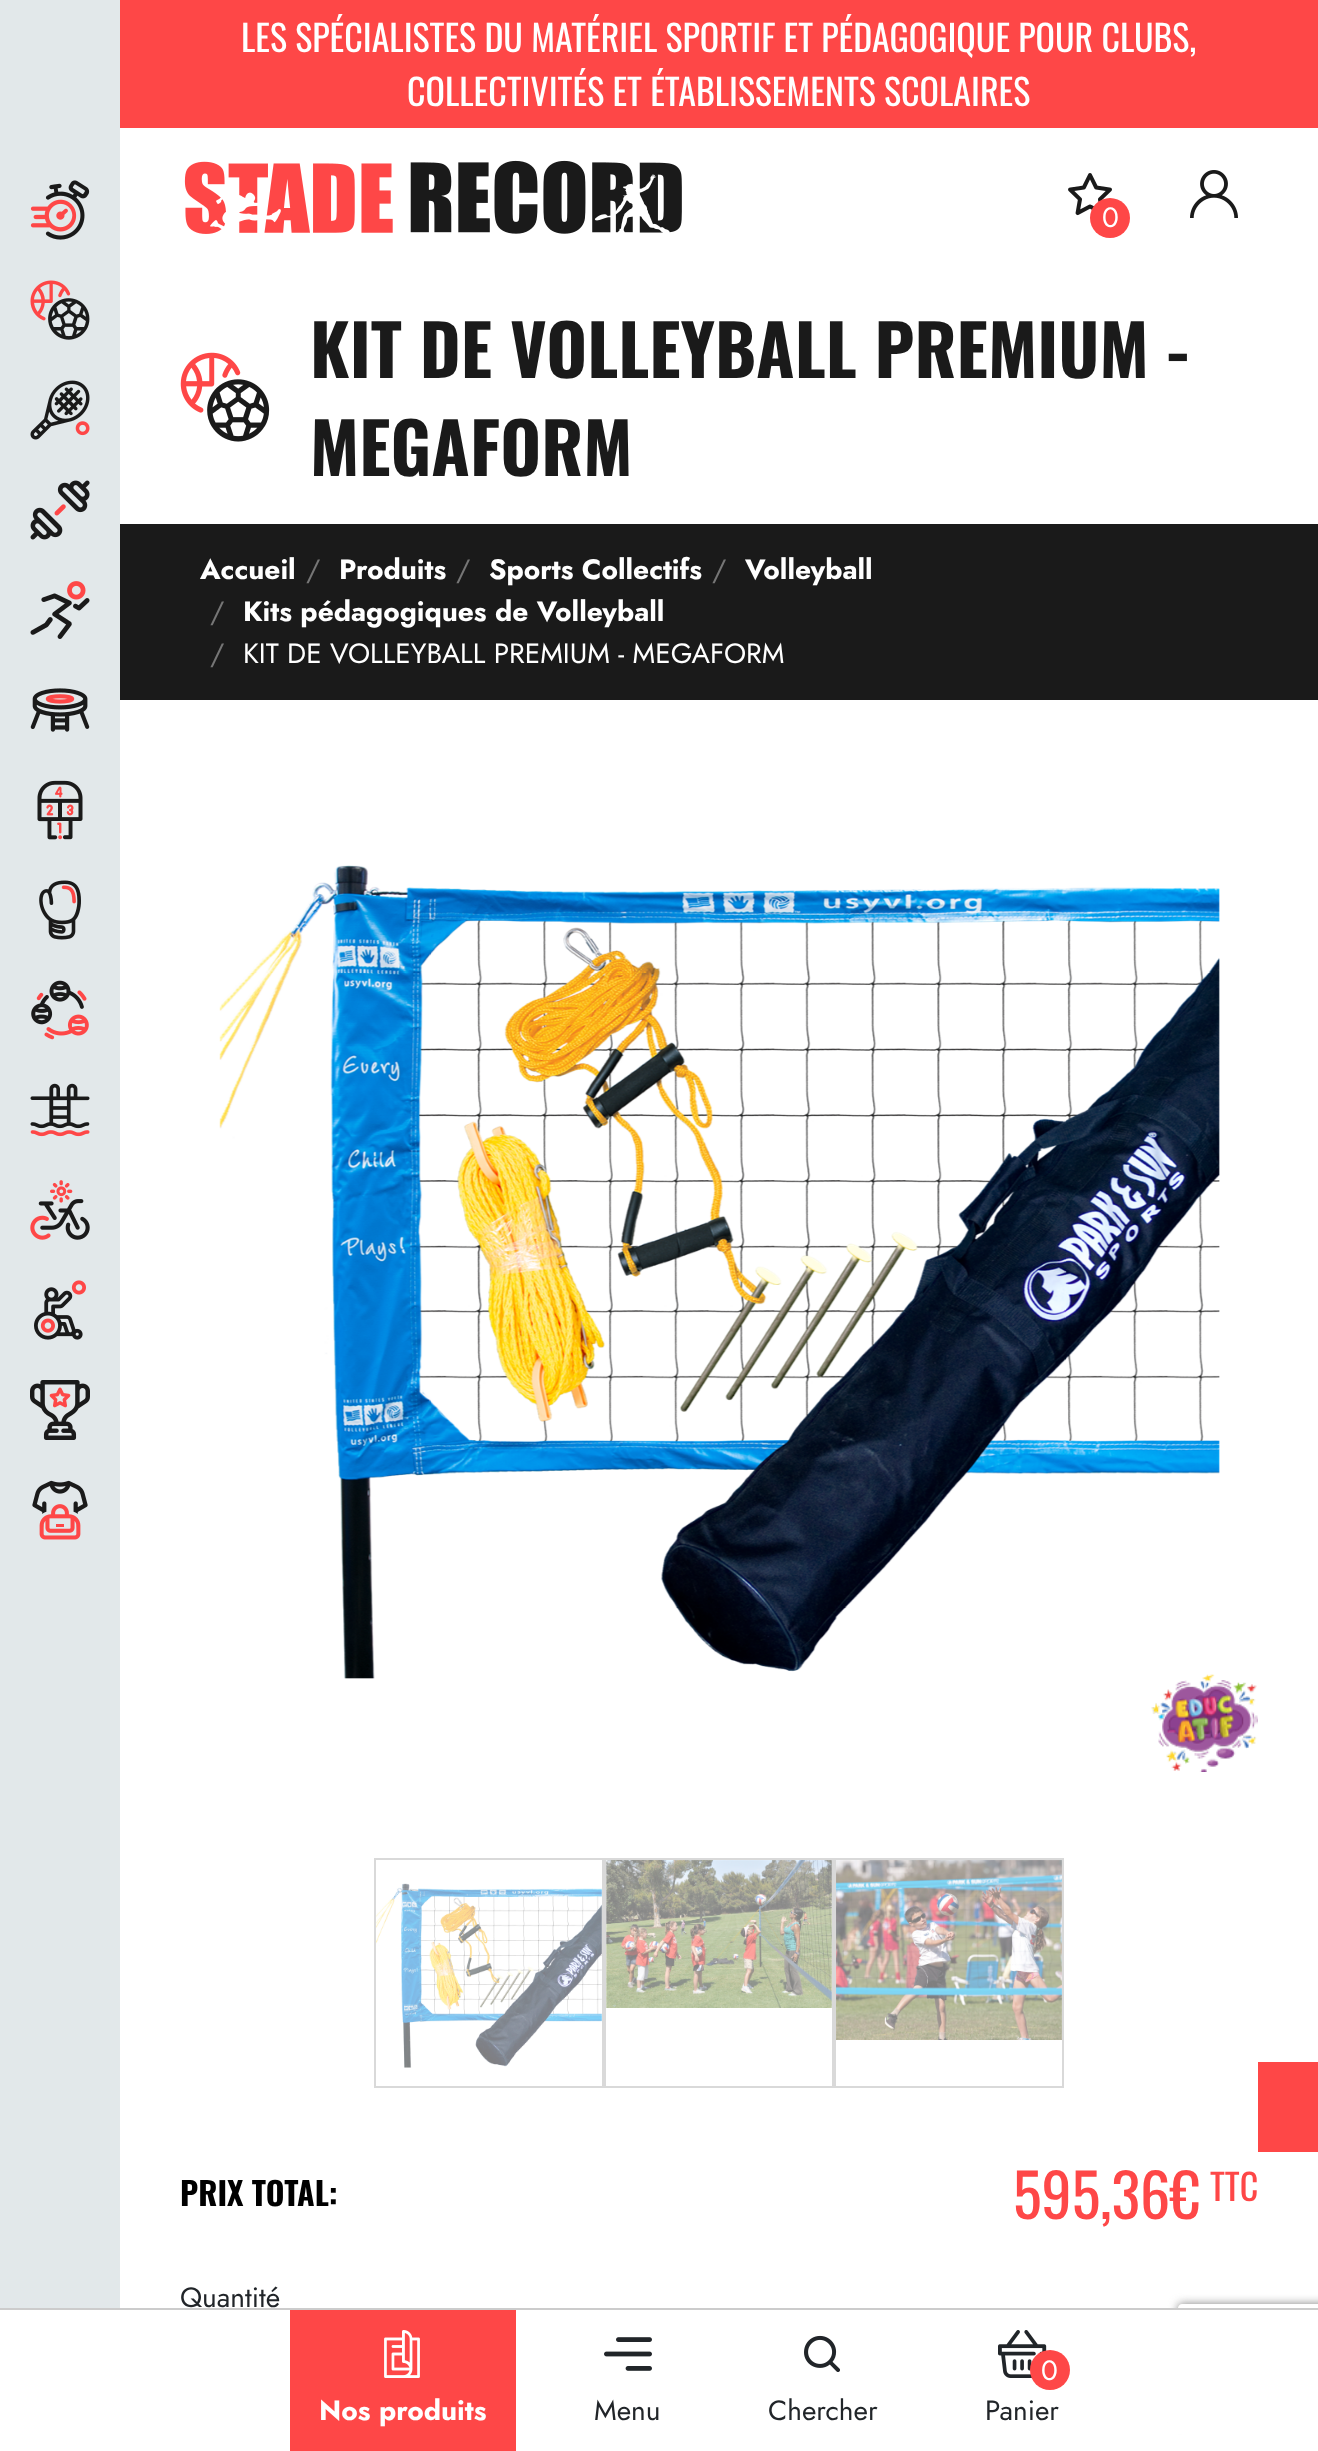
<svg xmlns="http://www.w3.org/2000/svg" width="1318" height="2451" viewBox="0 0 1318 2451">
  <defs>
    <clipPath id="clip1"><path d="M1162 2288H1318V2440H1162ZM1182 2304H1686C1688 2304 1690 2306 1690 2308V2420C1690 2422 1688 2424 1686 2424H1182C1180 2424 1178 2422 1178 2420V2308C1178 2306 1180 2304 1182 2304Z" clip-rule="evenodd"/></clipPath>
  </defs>
  <rect width="100%" height="100%" fill="#fff"/>
  <path d="M0 0h120v2308H0z" fill="#e2e8ea"/>
  <image x="30" y="180" width="60" height="60" href="img/1.png"/>
  <image x="30" y="280" width="60" height="60" href="img/2.png"/>
  <image x="30" y="380" width="60" height="60" href="img/3.png"/>
  <image x="30" y="480" width="60" height="60" href="img/4.png"/>
  <image x="30" y="581" width="60" height="58" href="img/5.png"/>
  <image x="30" y="688" width="60" height="44" href="img/6.png"/>
  <image x="37" y="780" width="46" height="60" href="img/7.png"/>
  <image x="39" y="880" width="42" height="60" href="img/8.png"/>
  <image x="31" y="980" width="58" height="60" href="img/9.png"/>
  <image x="30" y="1083" width="60" height="54" href="img/10.png"/>
  <image x="30" y="1180" width="60" height="60" href="img/11.png"/>
  <image x="34" y="1280" width="52" height="60" href="img/12.png"/>
  <image x="30" y="1380" width="60" height="60" href="img/13.png"/>
  <image x="32" y="1480" width="56" height="60" href="img/14.png"/>
  <path d="M120 0h1198v128H120z" fill="#fe4747"/>
  <image x="184" y="160" width="498" height="74" href="img/15.png"/>
  <image x="1068" y="173" width="44" height="43" href="img/16.png"/>
  <circle cx="1110" cy="218" r="20" fill="#fe4747"/>
  <image x="1190" y="170" width="48" height="48" href="img/17.png"/>
  <image x="180" y="352" width="90" height="90" href="img/18.png"/>
  <path d="M120 524h1198v176H120z" fill="#1a1a1a"/>
  <image x="219" y="865" width="1001" height="814" href="img/19.png"/>
  <image x="1151" y="1674" width="107" height="98" href="img/20.png"/>
  <path d="M375 1859h228v228H375z" fill="none" stroke="#d9d9d9" stroke-width="2"/>
  <image x="376" y="1883" width="226" height="185" href="img/21.png"/>
  <path d="M605 1859h228v228H605z" fill="none" stroke="#d9d9d9" stroke-width="2"/>
  <image x="606" y="1860" width="226" height="148" href="img/22.png"/>
  <path d="M835 1859h228v228H835z" fill="none" stroke="#d9d9d9" stroke-width="2"/>
  <image x="836" y="1860" width="226" height="180" href="img/23.png"/>
  <g clip-path="url(#clip1)">
    <rect x="1178" y="2304" width="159" height="120" rx="4" fill="#808080" filter="blur(5px)"/>
  </g>
  <path d="M1168 2310h150v124H1168z" fill="#fff"/>
  <path d="M0 2308h1318v2H0z" fill="#ccc"/>
  <path d="M290 2310h226v141H290z" fill="#fe4747"/>
  <image x="384" y="2330" width="36" height="48" href="img/24.png"/>
  <image x="604" y="2337" width="48" height="34" href="img/25.png"/>
  <image x="804" y="2335" width="36" height="37" href="img/26.png"/>
  <image x="998" y="2330" width="49" height="48" href="img/27.png"/>
  <circle cx="1050" cy="2370" r="20" fill="#fe4747"/>
  <path d="M1258 2062h60v90H1258z" fill="#fe4747"/>
  <g font-family="Oswald" font-size="36" fill="#fff">
    <text x="241" y="52">LES SPÉCIALISTES DU MATÉRIEL SPORTIF ET PÉDAGOGIQUE POUR CLUBS,</text>
    <text x="407" y="106">COLLECTIVITÉS ET ÉTABLISSEMENTS SCOLAIRES</text>
  </g>
  <text x="1102" y="227" font-family="Jost" font-size="28" fill="#fff">0</text>
  <g font-family="Oswald" font-size="70" font-weight="bold" fill="#1a1a1a">
    <text x="310" y="378">KIT DE VOLLEYBALL PREMIUM -</text>
    <text x="310" y="476">MEGAFORM</text>
  </g>
  <text x="200" y="579" font-family="Jost" font-size="28" font-weight="bold" fill="#fff">Accueil</text>
  <text x="306" y="579" font-family="Jost" font-size="28" fill="#767676">/</text>
  <text x="339" y="579" font-family="Jost" font-size="28" font-weight="bold" fill="#fff">Produits</text>
  <text x="456" y="579" font-family="Jost" font-size="28" fill="#767676">/</text>
  <text x="489" y="579" font-family="Jost" font-size="28" font-weight="bold" fill="#fff">Sports Collectifs</text>
  <text x="712" y="579" font-family="Jost" font-size="28" fill="#767676">/</text>
  <text x="745" y="579" font-family="Jost" font-size="28" font-weight="bold" fill="#fff">Volleyball</text>
  <text x="210" y="621" font-family="Jost" font-size="28" fill="#767676">/</text>
  <text x="243" y="621" font-family="Jost" font-size="28" font-weight="bold" fill="#fff">Kits pédagogiques de Volleyball</text>
  <text x="210" y="663" font-family="Jost" font-size="28" fill="#767676">/</text>
  <text x="243" y="663" font-family="Jost" font-size="28" fill="#fff">KIT DE VOLLEYBALL PREMIUM - MEGAFORM</text>
  <text x="180" y="2206" font-family="Oswald" font-size="32" font-weight="bold" fill="#000">PRIX TOTAL:</text>
  <text x="1013" y="2219" font-family="Oswald" font-size="60" fill="#fe4747">595,36€</text>
  <text x="1210" y="2201" font-family="Oswald" font-size="36" fill="#fe4747">TTC</text>
  <text x="180" y="2307" font-family="Jost" font-size="28" fill="#212529">Quantité</text>
  <text x="319" y="2420" font-family="Jost" font-size="28" font-weight="bold" fill="#fff">Nos produits</text>
  <g font-family="Jost" font-size="28" fill="#212529">
    <text x="594" y="2420">Menu</text>
    <text x="768" y="2420">Chercher</text>
  </g>
  <text x="1041" y="2380" font-family="Jost" font-size="28" fill="#fff">0</text>
  <text x="985" y="2420" font-family="Jost" font-size="28" fill="#212529">Panier</text>
</svg>
